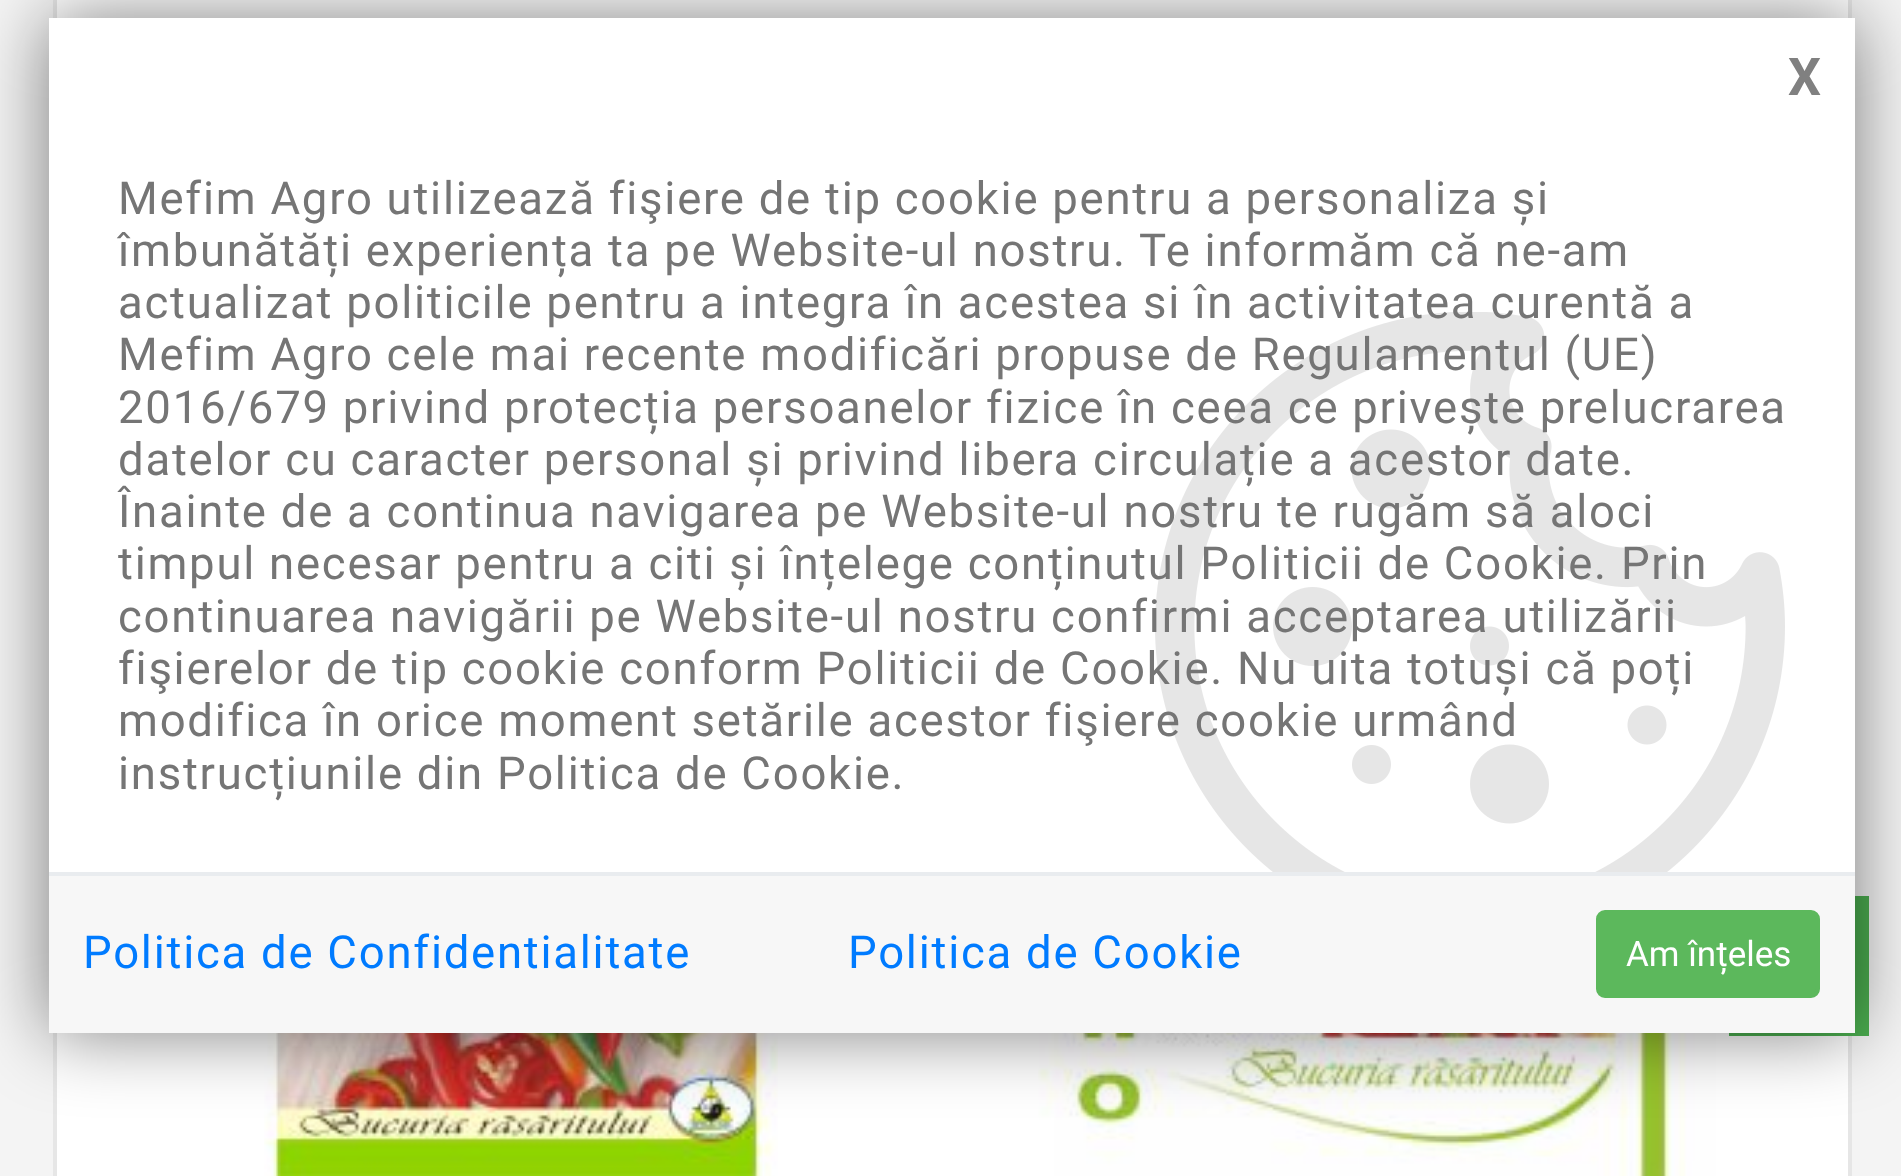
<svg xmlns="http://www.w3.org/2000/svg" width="1901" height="1176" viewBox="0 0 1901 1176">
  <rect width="100%" height="100%" fill="#f4f4f4"/>
  <path d="M55 -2h1795v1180H55z" fill="#fff" stroke="#e6e6e6" stroke-width="4"/>
  <image x="264" y="1033" width="514" height="143" href="img/1.png"/>
  <image x="1038" y="1033" width="702" height="143" href="img/2.png"/>
  <path d="M1729 896h140v140H1729z" fill="#4caf50"/>
  <path d="M49 18h1806v1015H49z" fill="#00000080" filter="blur(37px)"/>
  <path d="M49 18h1806v854H49z" fill="#fff"/>
  <image x="1155" y="312" width="630" height="560" href="img/3.png"/>
  <path d="M49 876h1806v157H49z" fill="#f7f7f7"/>
  <path d="M49 872h1806v4H49z" fill="#e9ecef"/>
  <rect x="1598" y="912" width="220" height="84" rx="7" fill="#5cb85c" stroke="#5cb85c" stroke-width="4"/>
  <text x="1788" y="95" font-family="Roboto" font-size="52" font-weight="bold" fill="#808080">X</text>
  <g font-family="Roboto" font-size="45.5" letter-spacing="1.75" fill="#757575">
    <text x="118" y="214">Mefim Agro utilizează fişiere de tip cookie pentru a personaliza și</text>
    <text x="118" y="266">îmbunătăți experiența ta pe Website-ul nostru. Te informăm că ne-am</text>
    <text x="118" y="318">actualizat politicile pentru a integra în acestea si în activitatea curentă a</text>
    <text x="118" y="370">Mefim Agro cele mai recente modificări propuse de Regulamentul (UE)</text>
    <text x="118" y="423">2016/679 privind protecția persoanelor fizice în ceea ce privește prelucrarea</text>
    <text x="118" y="475">datelor cu caracter personal și privind libera circulație a acestor date.</text>
    <text x="118" y="527">Înainte de a continua navigarea pe Website-ul nostru te rugăm să aloci</text>
    <text x="118" y="579">timpul necesar pentru a citi și înțelege conținutul Politicii de Cookie. Prin</text>
    <text x="118" y="632">continuarea navigării pe Website-ul nostru confirmi acceptarea utilizării</text>
    <text x="118" y="684">fişierelor de tip cookie conform Politicii de Cookie. Nu uita totuși că poți</text>
    <text x="118" y="736">modifica în orice moment setările acestor fişiere cookie urmând</text>
    <text x="118" y="789">instrucțiunile din Politica de Cookie.</text>
  </g>
  <g font-family="Roboto" font-size="45.5" letter-spacing="1.75" fill="#007bff">
    <text x="83" y="968">Politica de Confidentialitate</text>
    <text x="848" y="968">Politica de Cookie</text>
  </g>
  <text x="1626" y="966" font-family="Roboto" font-size="35" fill="#fff">Am înțeles</text>
</svg>
